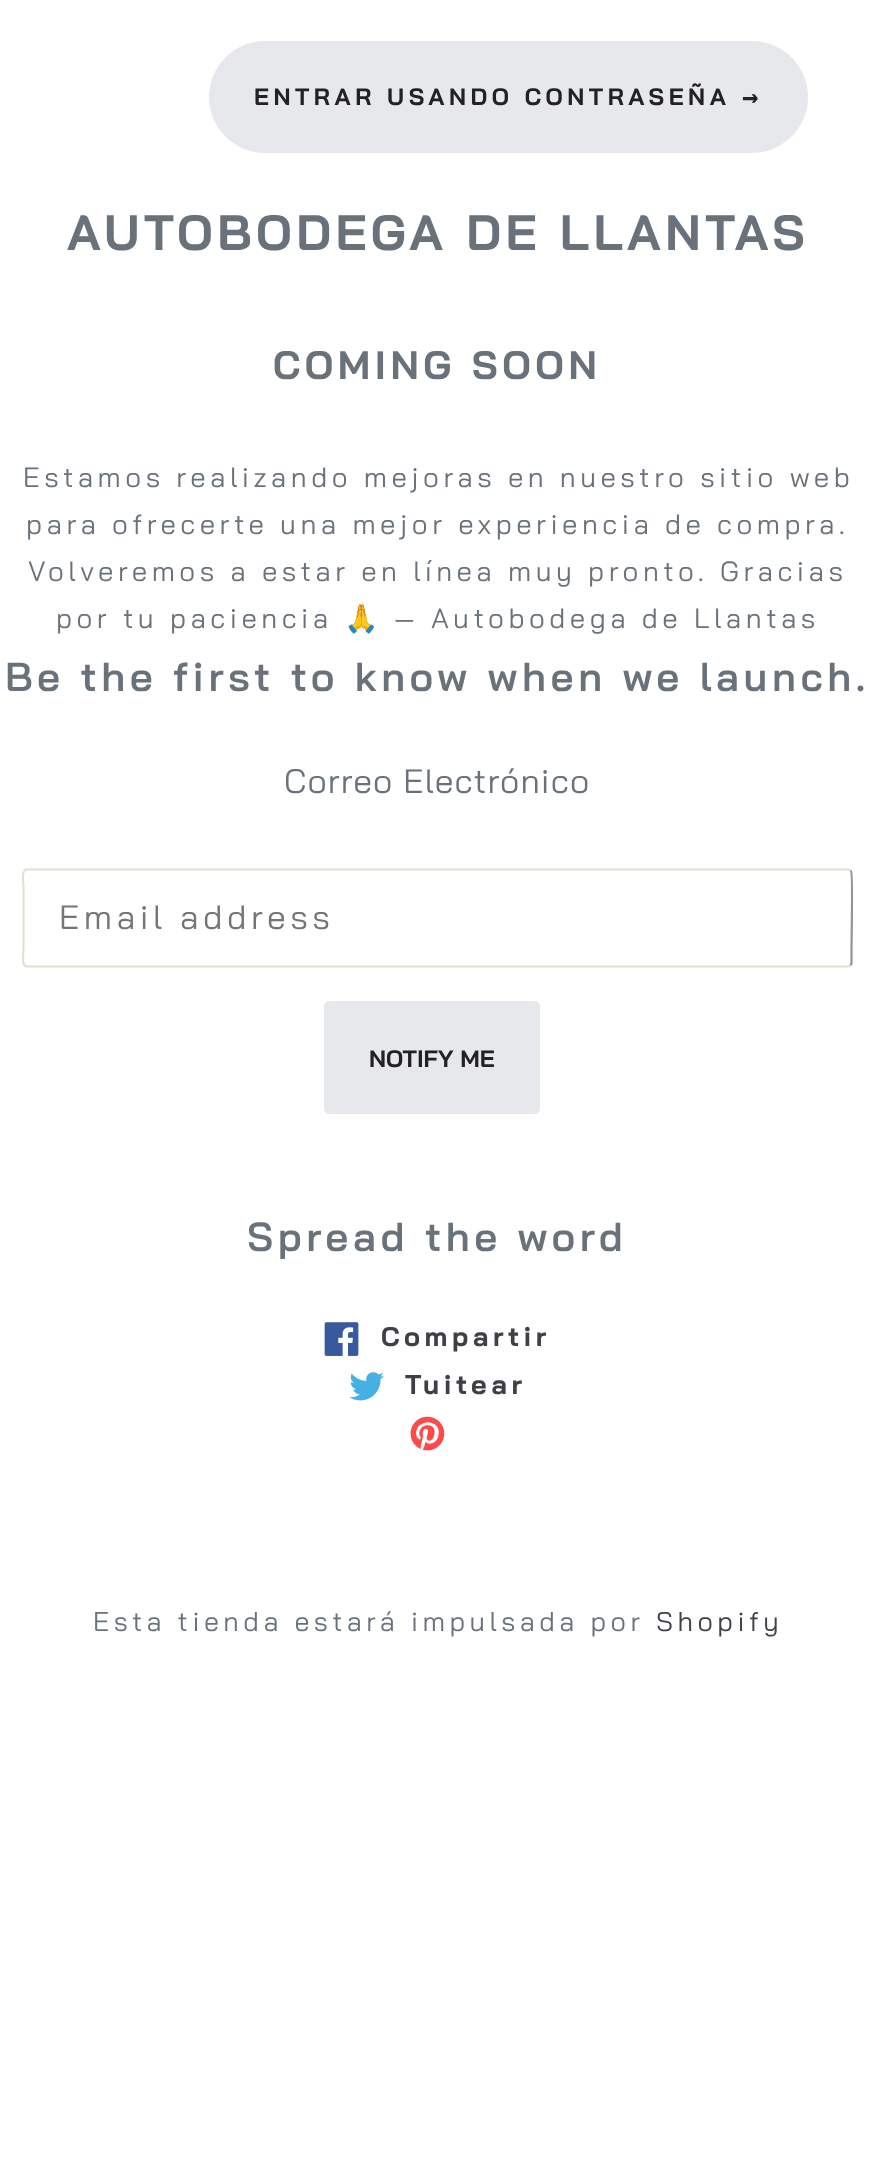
<svg xmlns="http://www.w3.org/2000/svg" width="875" height="2162" viewBox="0 0 875 2162">
  <rect width="100%" height="100%" fill="#fff"/>
  <rect x="209" y="41" width="599" height="112" rx="56" fill="#e7e8eb"/>
  <path d="M850.5 870.5L851 871C853 873 851.5 939.5 851.5 948V963L850.5 965.5" fill="none" stroke="#949494" stroke-width="2.2"/>
  <path d="M850.5 965.5L848 966.5H27C21 966.5 23.5 954.5 23.5 948V888C23.5 881.5 21 869.5 27 869.5H848L850.5 870.5" fill="none" stroke="#e3e0d3" stroke-width="2.2"/>
  <rect x="324" y="1001" width="216" height="113" rx="5" fill="#e7e8eb"/>
  <image x="324" y="1322" width="35" height="34" href="img/1.png"/>
  <image x="349" y="1372" width="35" height="29" href="img/2.png"/>
  <image x="410" y="1416" width="35" height="35" href="img/3.png"/>
  <g font-family="Bai Jamjuree" font-size="23.75" font-weight="bold" letter-spacing="4.5" fill="#222">
    <text x="254" y="105">ENTRAR USANDO CONTRASEÑA</text>
    <text x="742" y="105">→</text>
  </g>
  <text x="67" y="250" font-family="Bai Jamjuree" font-size="49.5" font-weight="bold" letter-spacing="4.5" fill="#69727b">AUTOBODEGA DE LLANTAS</text>
  <text x="273" y="379" font-family="Bai Jamjuree" font-size="39.5" font-weight="bold" letter-spacing="4.5" fill="#69727b">COMING SOON</text>
  <g font-family="Bai Jamjuree" font-size="27.75" letter-spacing="4.5" fill="#69727b">
    <text x="23" y="487">Estamos realizando mejoras en nuestro sitio web</text>
    <text x="26" y="534">para ofrecerte una mejor experiencia de compra.</text>
    <text x="28" y="581">Volveremos a estar en línea muy pronto. Gracias</text>
    <text x="56" y="628">por tu paciencia</text>
  </g>
  <text x="344" y="628" font-family="Noto Color Emoji" font-size="27.75" letter-spacing="4.5" fill="#69727b">🙏</text>
  <text x="394" y="628" font-family="Bai Jamjuree" font-size="27.75" letter-spacing="4.5" fill="#69727b">— Autobodega de Llantas</text>
  <text x="5" y="691" font-family="Bai Jamjuree" font-size="40.5" font-weight="600" letter-spacing="4.5" fill="#69727b">Be the first to know when we launch.</text>
  <text x="284" y="793" font-family="Bai Jamjuree" font-size="33.75" letter-spacing="1.1" fill="#69727b">Correo Electrónico</text>
  <text x="59" y="929" font-family="Bai Jamjuree" font-size="33.75" letter-spacing="4.5" fill="#757575">Email address</text>
  <text x="369" y="1067" font-family="Bai Jamjuree" font-size="23.75" font-weight="bold" fill="#222">NOTIFY ME</text>
  <text x="247" y="1251" font-family="Bai Jamjuree" font-size="40.5" font-weight="600" letter-spacing="4.5" fill="#69727b">Spread the word</text>
  <g font-family="Bai Jamjuree" font-size="27" font-weight="bold" letter-spacing="4.5" fill="#3f4045">
    <text x="381" y="1346">Compartir</text>
    <text x="405" y="1394">Tuitear</text>
  </g>
  <text x="93" y="1631" font-family="Bai Jamjuree" font-size="27" letter-spacing="4.5" fill="#69727b">Esta tienda estará impulsada por</text>
  <text x="656" y="1631" font-family="Bai Jamjuree" font-size="27" letter-spacing="4.5" fill="#3f4045">Shopify</text>
</svg>
